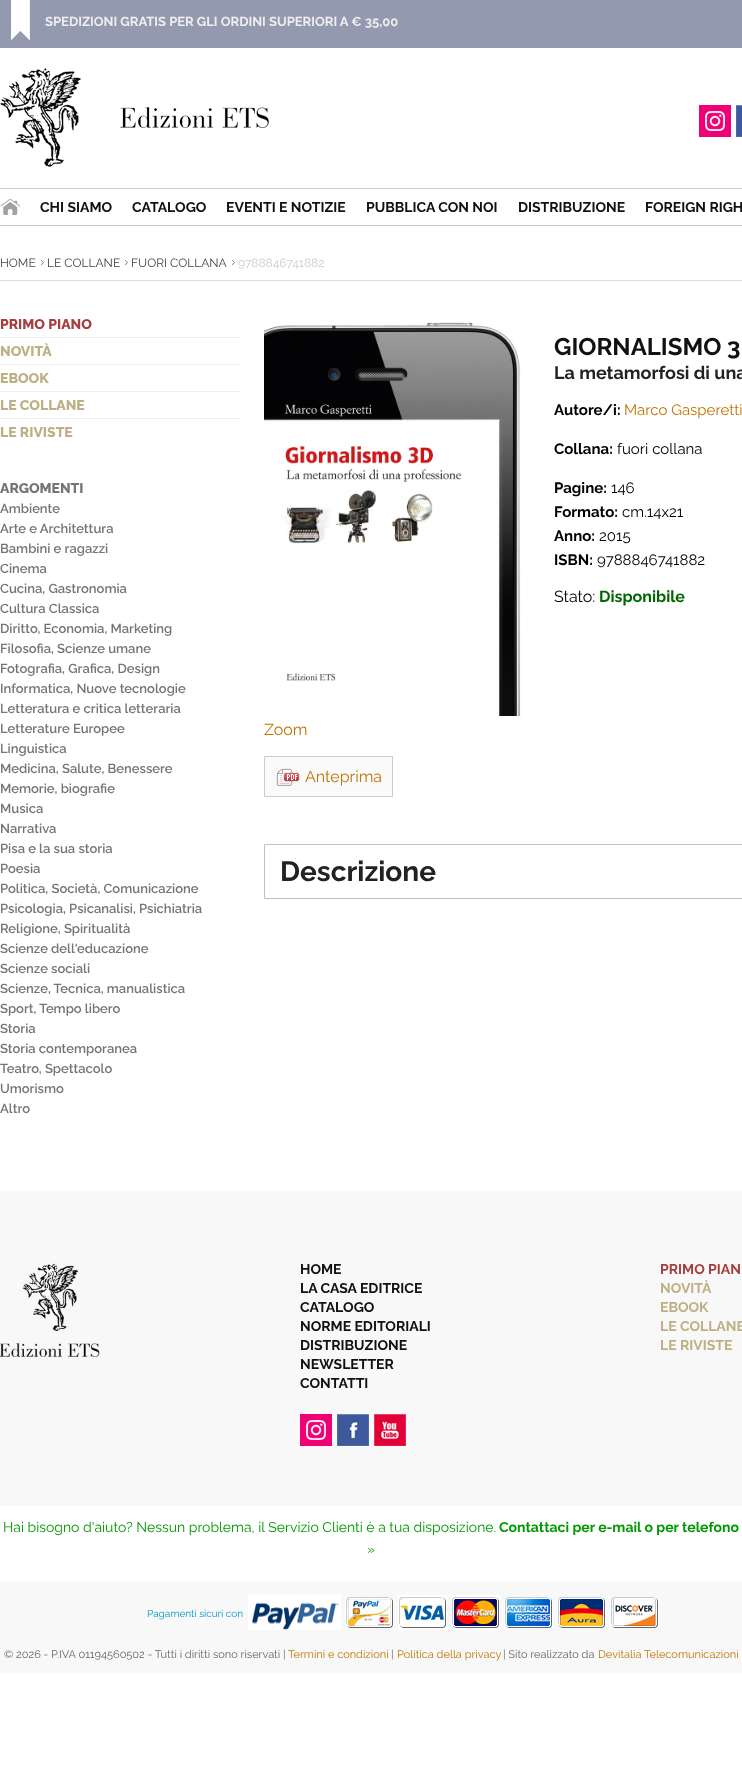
<svg xmlns="http://www.w3.org/2000/svg" width="742" height="1780" viewBox="0 0 742 1780">
  <rect width="100%" height="100%" fill="#fff"/>
  <path d="M0 0h742v48H0z" fill="#9399af"/>
  <image x="11" y="0" width="19" height="40" href="img/1.png"/>
  <image x="0" y="68" width="269" height="99" href="img/2.png"/>
  <image x="699" y="105" width="32" height="32" href="img/3.png"/>
  <image x="736" y="105" width="6" height="32" href="img/4.png"/>
  <path d="M0 188h742v1H0z" fill="#ccc"/>
  <path d="M0 225h742v1H0z" fill="#ccc"/>
  <image x="0" y="199" width="20" height="16" href="img/5.png"/>
  <path d="M0 280h742v1H0z" fill="#ddd"/>
  <image x="41" y="260" width="3" height="5" href="img/6.png"/>
  <image x="125" y="260" width="3" height="5" href="img/6.png"/>
  <image x="232" y="260" width="3" height="5" href="img/6.png"/>
  <path d="M0 337h240v1H0z" fill="#eee"/>
  <path d="M0 364h240v1H0z" fill="#eee"/>
  <path d="M0 391h240v1H0z" fill="#eee"/>
  <path d="M0 418h240v1H0z" fill="#eee"/>
  <image x="264" y="322" width="257" height="394" href="img/7.png"/>
  <path d="M264.5 756.5h128v40H264.5z" fill="#fafafa" stroke="#ccc"/>
  <image x="276" y="768" width="24" height="18" href="img/8.png"/>
  <path d="M264.5 844.5h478v54H264.5z" fill="none" stroke="#c1c1c1"/>
  <path d="M0 1191h742v482H0z" fill="#f8f8f8"/>
  <image x="0" y="1263" width="100" height="94" href="img/9.png"/>
  <image x="300" y="1414" width="32" height="32" href="img/3.png"/>
  <image x="337" y="1414" width="32" height="32" href="img/10.png"/>
  <image x="374" y="1414" width="32" height="32" href="img/11.png"/>
  <path d="M0 1506h742v75H0z" fill="#fff"/>
  <image x="248" y="1595" width="93" height="35" href="img/12.png"/>
  <image x="345" y="1597" width="49" height="31" href="img/13.png"/>
  <image x="398" y="1595" width="49" height="35" href="img/14.png"/>
  <image x="451" y="1595" width="49" height="35" href="img/15.png"/>
  <image x="504" y="1597" width="49" height="31" href="img/16.png"/>
  <image x="558" y="1597" width="48" height="31" href="img/17.png"/>
  <image x="610" y="1597" width="49" height="31" href="img/18.png"/>
  <text x="45" y="26" font-family="Raleway" font-size="13" font-weight="bold" fill="#eee">SPEDIZIONI GRATIS PER GLI ORDINI SUPERIORI A € 35,00</text>
  <g font-family="Raleway" font-size="14" font-weight="bold" fill="#111">
    <text x="40" y="212">CHI SIAMO</text>
    <text x="132" y="212">CATALOGO</text>
    <text x="226" y="212">EVENTI E NOTIZIE</text>
    <text x="366" y="212">PUBBLICA CON NOI</text>
    <text x="518" y="212">DISTRIBUZIONE</text>
    <text x="645" y="212">FOREIGN RIGH</text>
  </g>
  <g font-family="Raleway" font-size="12" fill="#444">
    <text x="0" y="267">HOME</text>
    <text x="47" y="267">LE COLLANE</text>
    <text x="131" y="267">FUORI COLLANA</text>
  </g>
  <text x="238" y="267" font-family="Raleway" font-size="12" fill="#ccc">9788846741882</text>
  <text x="0" y="329" font-family="Raleway" font-size="14" font-weight="800" fill="#a63f40">PRIMO PIANO</text>
  <g font-family="Raleway" font-size="14" font-weight="800" fill="#beaf84">
    <text x="0" y="356">NOVITÀ</text>
    <text x="0" y="383">EBOOK</text>
    <text x="0" y="410">LE COLLANE</text>
    <text x="0" y="437">LE RIVISTE</text>
  </g>
  <text x="0" y="493" font-family="Raleway" font-size="14" font-weight="800" fill="#757575">ARGOMENTI</text>
  <g font-family="Raleway" font-size="13" font-weight="600" fill="#757575">
    <text x="0" y="513">Ambiente</text>
    <text x="0" y="533">Arte e Architettura</text>
    <text x="0" y="553">Bambini e ragazzi</text>
    <text x="0" y="573">Cinema</text>
    <text x="0" y="593">Cucina, Gastronomia</text>
    <text x="0" y="613">Cultura Classica</text>
    <text x="0" y="633">Diritto, Economia, Marketing</text>
    <text x="0" y="653">Filosofia, Scienze umane</text>
    <text x="0" y="673">Fotografia, Grafica, Design</text>
    <text x="0" y="693">Informatica, Nuove tecnologie</text>
    <text x="0" y="713">Letteratura e critica letteraria</text>
    <text x="0" y="733">Letterature Europee</text>
    <text x="0" y="753">Linguistica</text>
    <text x="0" y="773">Medicina, Salute, Benessere</text>
    <text x="0" y="793">Memorie, biografie</text>
    <text x="0" y="813">Musica</text>
    <text x="0" y="833">Narrativa</text>
    <text x="0" y="853">Pisa e la sua storia</text>
    <text x="0" y="873">Poesia</text>
    <text x="0" y="893">Politica, Società, Comunicazione</text>
    <text x="0" y="913">Psicologia, Psicanalisi, Psichiatria</text>
    <text x="0" y="933">Religione, Spiritualità</text>
    <text x="0" y="953">Scienze dell'educazione</text>
    <text x="0" y="973">Scienze sociali</text>
    <text x="0" y="993">Scienze, Tecnica, manualistica</text>
    <text x="0" y="1013">Sport, Tempo libero</text>
    <text x="0" y="1033">Storia</text>
    <text x="0" y="1053">Storia contemporanea</text>
    <text x="0" y="1073">Teatro, Spettacolo</text>
    <text x="0" y="1093">Umorismo</text>
    <text x="0" y="1113">Altro</text>
  </g>
  <text x="554" y="355" font-family="Raleway" font-size="24" font-weight="bold" fill="#111">GIORNALISMO 3</text>
  <text x="554" y="379" font-family="Raleway" font-size="18" font-weight="bold" fill="#222">La metamorfosi di una</text>
  <text x="554" y="415" font-family="Raleway" font-size="15" font-weight="bold" fill="#000">Autore/i:</text>
  <text x="624" y="415" font-family="Raleway" font-size="15" fill="#c07404">Marco Gasperetti</text>
  <text x="554" y="454" font-family="Raleway" font-size="15" font-weight="bold" fill="#000">Collana:</text>
  <text x="617" y="454" font-family="Raleway" font-size="15" fill="#000">fuori collana</text>
  <text x="554" y="493" font-family="Raleway" font-size="15" font-weight="bold" fill="#000">Pagine:</text>
  <text x="611" y="493" font-family="Raleway" font-size="15" fill="#000">146</text>
  <text x="554" y="517" font-family="Raleway" font-size="15" font-weight="bold" fill="#000">Formato:</text>
  <text x="622" y="517" font-family="Raleway" font-size="15" fill="#000">cm.14x21</text>
  <text x="554" y="541" font-family="Raleway" font-size="15" font-weight="bold" fill="#000">Anno:</text>
  <text x="599" y="541" font-family="Raleway" font-size="15" fill="#000">2015</text>
  <text x="554" y="565" font-family="Raleway" font-size="15" font-weight="bold" fill="#000">ISBN:</text>
  <text x="597" y="565" font-family="Raleway" font-size="15" fill="#000">9788846741882</text>
  <text x="554" y="602" font-family="Raleway" font-size="16" fill="#000">Stato:</text>
  <text x="599" y="602" font-family="Raleway" font-size="16" font-weight="bold" fill="#060">Disponibile</text>
  <g font-family="Raleway" font-size="16" fill="#c07404">
    <text x="264" y="735">Zoom</text>
    <text x="305" y="782">Anteprima</text>
  </g>
  <text x="280" y="881" font-family="Raleway" font-size="28" font-weight="bold" fill="#222">Descrizione</text>
  <g font-family="Raleway" font-size="14" font-weight="bold" fill="#111">
    <text x="300" y="1274">HOME</text>
    <text x="300" y="1293">LA CASA EDITRICE</text>
    <text x="300" y="1312">CATALOGO</text>
    <text x="300" y="1331">NORME EDITORIALI</text>
    <text x="300" y="1350">DISTRIBUZIONE</text>
    <text x="300" y="1369">NEWSLETTER</text>
    <text x="300" y="1388">CONTATTI</text>
  </g>
  <text x="660" y="1274" font-family="Raleway" font-size="14" font-weight="bold" fill="#a63f40">PRIMO PIAN</text>
  <g font-family="Raleway" font-size="14" font-weight="bold" fill="#beaf84">
    <text x="660" y="1293">NOVITÀ</text>
    <text x="660" y="1312">EBOOK</text>
    <text x="660" y="1331">LE COLLANE</text>
    <text x="660" y="1350">LE RIVISTE</text>
  </g>
  <text x="3" y="1532" font-family="Raleway" font-size="14" fill="#090">Hai bisogno d'aiuto? Nessun problema, il Servizio Clienti è a tua disposizione.</text>
  <text x="499" y="1532" font-family="Raleway" font-size="14" font-weight="bold" fill="#090">Contattaci per e-mail o per telefono</text>
  <text x="367" y="1554" font-family="Raleway" font-size="14" fill="#090">»</text>
  <text x="147" y="1617" font-family="Raleway" font-size="10" fill="#09c">Pagamenti sicuri con</text>
  <text x="4" y="1658" font-family="Raleway" font-size="11" fill="#666">© 2026 - P.IVA 01194560502 - Tutti i diritti sono riservati |</text>
  <text x="288" y="1658" font-family="Raleway" font-size="11" fill="#c07404">Termini e condizioni</text>
  <text x="391" y="1658" font-family="Raleway" font-size="11" fill="#666">|</text>
  <text x="397" y="1658" font-family="Raleway" font-size="11" fill="#c07404">Politica della privacy</text>
  <text x="503" y="1658" font-family="Raleway" font-size="11" fill="#666">| Sito realizzato da</text>
  <text x="598" y="1658" font-family="Raleway" font-size="11" fill="#c07404">Devitalia Telecomunicazioni</text>
</svg>
